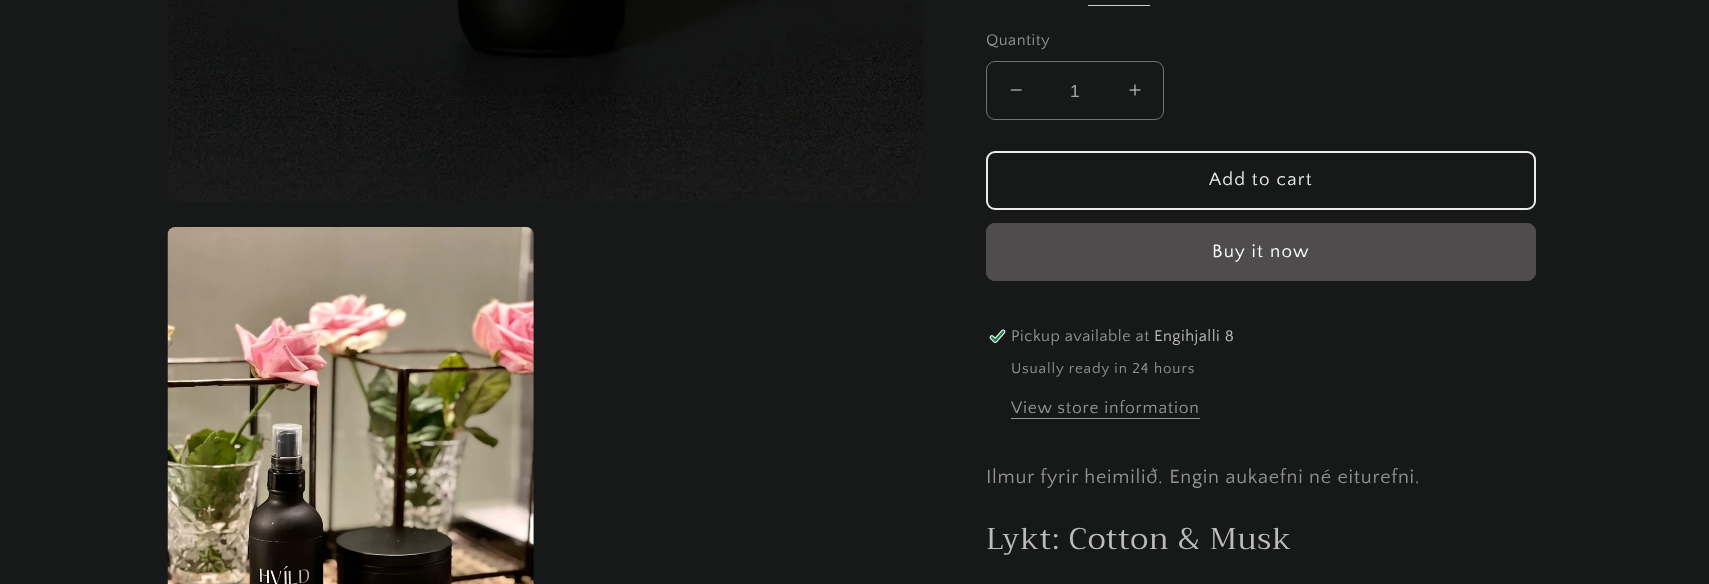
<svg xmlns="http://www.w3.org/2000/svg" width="1709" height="584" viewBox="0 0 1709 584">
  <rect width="100%" height="100%" fill="#171919"/>
  <image x="168" y="0" width="756" height="202" href="img/1.png"/>
  <image x="167" y="227" width="367" height="357" href="img/2.png"/>
  <path d="M1088 5h62v1H1088z" fill="#ccc"/>
  <image x="1010" y="89" width="12" height="2" href="img/3.png"/>
  <image x="1129" y="84" width="12" height="12" href="img/4.png"/>
  <rect x="986.5" y="61.5" width="177" height="58" rx="8.5" fill="none" stroke="#727373"/>
  <rect x="987" y="152" width="548" height="57" rx="8" fill="none" stroke="#ececec" stroke-width="2"/>
  <rect x="986" y="223" width="550" height="58" rx="9" fill="#4e4c4c"/>
  <rect x="986.5" y="223.5" width="549" height="57" rx="8.5" fill="none" stroke="#4e4c4c"/>
  <image x="989" y="329" width="17" height="14" href="img/5.png"/>
  <path d="M1011 418h189v1H1011z" fill="#939393"/>
  <text x="986" y="45" font-family="Quattrocento Sans" font-size="16.25" letter-spacing="0.5" fill="#939393">Quantity</text>
  <text x="1070" y="97" font-family="Liberation Sans" font-size="17.5" fill="#a3a4a4">1</text>
  <text x="1209" y="185" font-family="Quattrocento Sans" font-size="18.75" letter-spacing="1.25" fill="#ececec">Add to cart</text>
  <text x="1212" y="257" font-family="Quattrocento Sans" font-size="18.75" letter-spacing="1.25" fill="#fff">Buy it now</text>
  <text x="1011" y="341" font-family="Quattrocento Sans" font-size="16.25" letter-spacing="0.5" fill="#939393">Pickup available at</text>
  <text x="1154" y="341" font-family="Quattrocento Sans" font-size="16.25" letter-spacing="0.5" fill="#bcbcbc">Engihjalli 8</text>
  <text x="1011" y="373" font-family="Quattrocento Sans" font-size="15" letter-spacing="0.9" fill="#939393">Usually ready in 24 hours</text>
  <text x="1011" y="413" font-family="Quattrocento Sans" font-size="17.5" letter-spacing="0.75" fill="#939393">View store information</text>
  <text x="986" y="483" font-family="Quattrocento Sans" font-size="20" letter-spacing="0.75" fill="#939393">Ilmur fyrir heimilið. Engin aukaefni né eiturefni.</text>
  <text x="986" y="549" font-family="Trirong" font-size="30" letter-spacing="0.75" fill="#bcbcbc">Lykt: Cotton &amp; Musk</text>
</svg>
